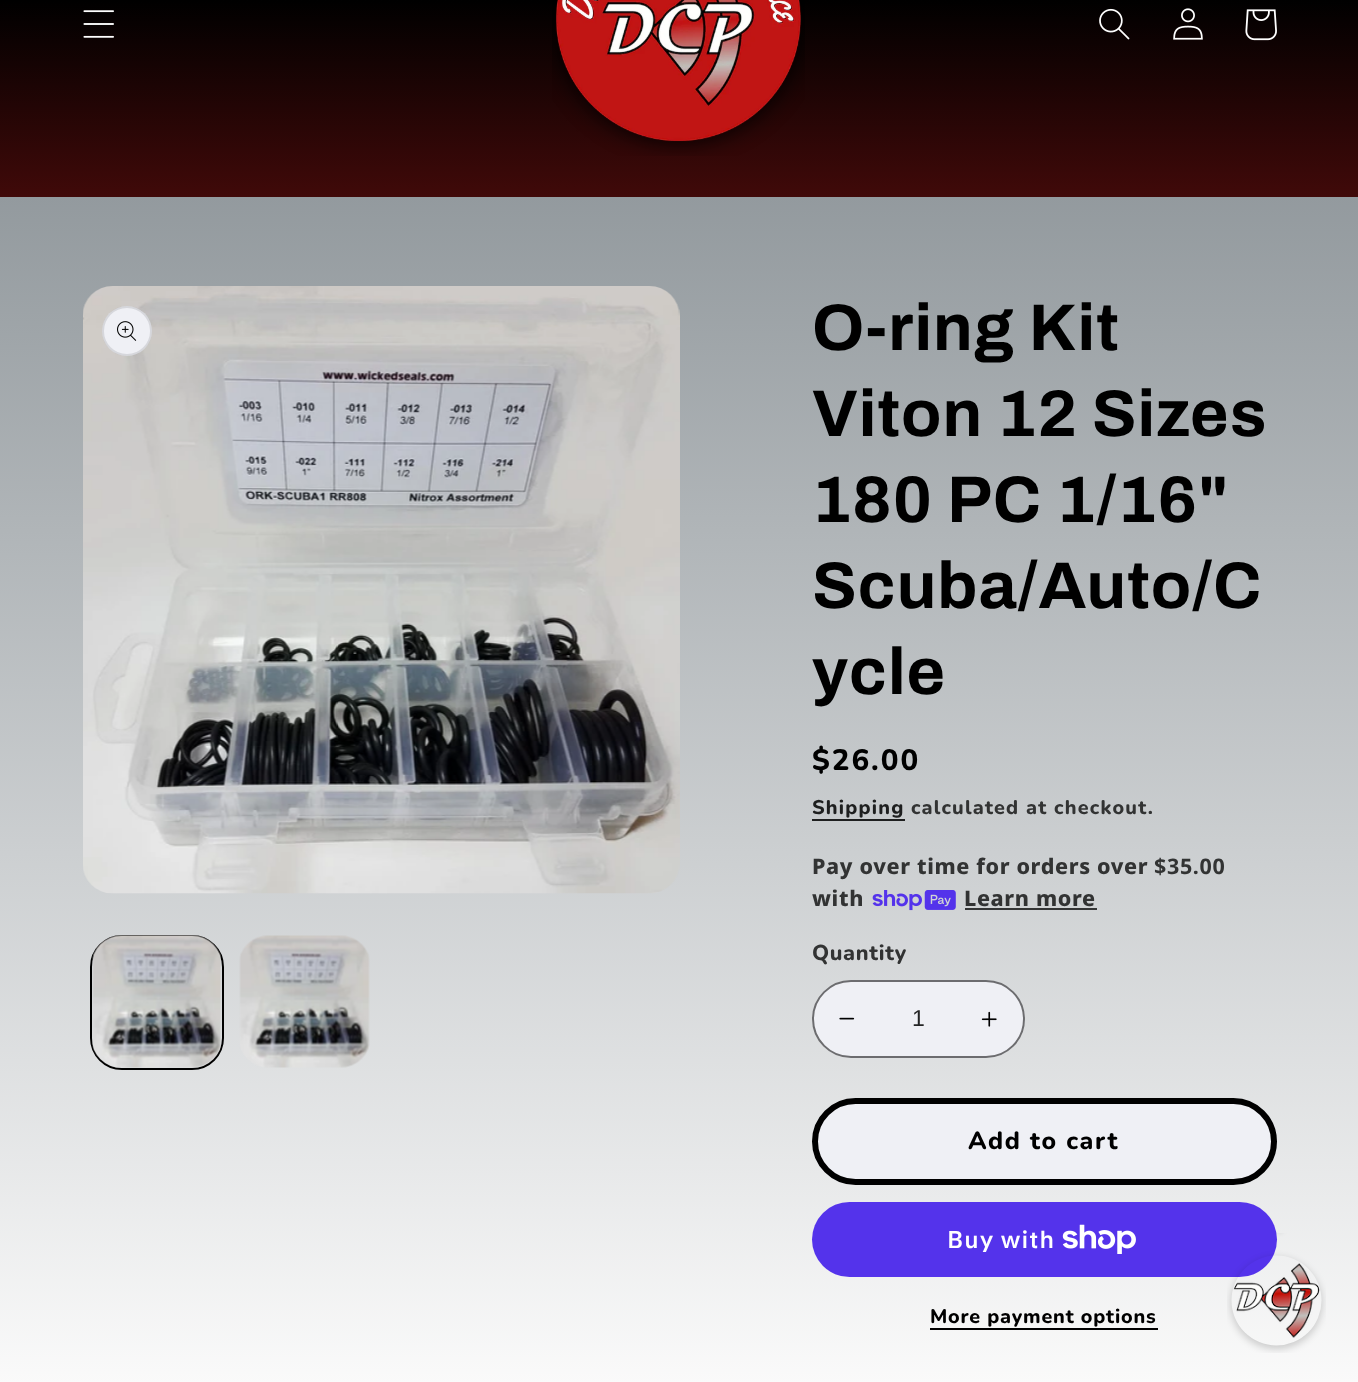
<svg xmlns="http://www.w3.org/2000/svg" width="1358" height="1382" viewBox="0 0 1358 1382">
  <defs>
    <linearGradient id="g1" gradientUnits="userSpaceOnUse" x1="679" y1="0" x2="680" y2="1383"><stop offset="0" stop-color="#828a8f"/><stop offset="1" stop-color="#fafafa"/></linearGradient>
    <linearGradient id="g2" gradientUnits="userSpaceOnUse" x1="679" y1="0" x2="680" y2="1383"><stop offset="0" stop-color="#000"/><stop offset="0.5" stop-color="#e22120"/><stop offset="1" stop-color="#c33"/></linearGradient>
  </defs>
  <rect width="100%" height="100%" fill="#fff"/>
  <path d="M0 197h1358v1185H0z" fill="url(#g1)"/>
  <path d="M0 0h1358v197H0z" fill="url(#g2)"/>
  <image x="83" y="10" width="31" height="28" href="img/1.png"/>
  <image x="552" y="0" width="253" height="156" href="img/2.png"/>
  <image x="1099" y="8" width="31" height="32" href="img/3.png"/>
  <image x="1173" y="8" width="30" height="32" href="img/4.png"/>
  <image x="1245" y="9" width="32" height="32" href="img/5.png"/>
  <rect x="812" y="1202" width="465" height="75" rx="37.5" fill="#5433eb"/>
  <image x="1227" y="1233" width="99" height="120" href="img/6.png"/>
  <image x="83" y="286" width="597" height="608" href="img/7.png"/>
  <circle cx="127" cy="331" r="25" fill="#eff0f5"/>
  <circle cx="127" cy="331" r="24" fill="none" stroke="#0000001a" stroke-width="2"/>
  <image x="117" y="321" width="20" height="20" href="img/8.png"/>
  <rect x="91" y="936" width="132" height="133" rx="31" fill="none" stroke="#000" stroke-width="2"/>
  <image x="92" y="935" width="129" height="133" href="img/9.png"/>
  <image x="239" y="935" width="131" height="133" href="img/10.png"/>
  <path d="M812 819h93v2H812z" fill="#1e1f1f"/>
  <image x="872" y="890" width="84" height="21" href="img/11.png"/>
  <path d="M965 908h132v2H965z" fill="#343535"/>
  <rect x="812" y="980" width="213" height="78" rx="39" fill="#eff0f5"/>
  <image x="839" y="1017" width="16" height="3" href="img/12.png"/>
  <image x="981" y="1011" width="16" height="16" href="img/13.png"/>
  <rect x="813" y="981" width="211" height="76" rx="38" fill="none" stroke="#0000008c" stroke-width="2"/>
  <rect x="812" y="1098" width="465" height="87" rx="43.5" fill="#eff0f5"/>
  <rect x="815" y="1101" width="459" height="81" rx="40.5" fill="none" stroke="#eff0f5" stroke-width="6"/>
  <rect x="815" y="1101" width="459" height="81" rx="40.5" fill="none" stroke="#000" stroke-width="6"/>
  <image x="1062" y="1224" width="74" height="30" href="img/14.png"/>
  <path d="M930 1328h228v2H930z" fill="#000"/>
  <g font-family="Archivo" font-size="66" font-weight="bold" letter-spacing="1" fill="#000">
    <text x="812" y="350">O-ring Kit</text>
    <text x="812" y="436">Viton 12 Sizes</text>
    <text x="812" y="522">180 PC 1/16"</text>
    <text x="812" y="608">Scuba/Auto/C</text>
    <text x="812" y="694">ycle</text>
  </g>
  <text x="812" y="770" font-family="Nunito" font-size="29.5" font-weight="800" letter-spacing="2" fill="#000">$26.00</text>
  <text x="812" y="814" font-family="Nunito" font-size="19.75" font-weight="800" letter-spacing="1.2" fill="#1e1f1f">Shipping</text>
  <text x="911" y="814" font-family="Nunito" font-size="19.75" font-weight="800" letter-spacing="1.2" fill="#323333">calculated at checkout.</text>
  <text x="812" y="874" font-family="Noto Sans" font-size="21.5" font-weight="800" letter-spacing="0.65" fill="#323333">Pay over time for orders over</text>
  <text x="1154" y="874" font-family="Noto Sans" font-size="21.5" font-weight="bold" letter-spacing="0.65" fill="#323333">$35.00</text>
  <g font-family="Noto Sans" font-size="21.5" font-weight="800" letter-spacing="0.65" fill="#323333">
    <text x="812" y="906">with</text>
    <text x="964" y="906">Learn more</text>
  </g>
  <text x="812" y="960" font-family="Nunito" font-size="21.5" font-weight="800" letter-spacing="0.65" fill="#323333">Quantity</text>
  <text x="912" y="1026" font-family="Liberation Sans" font-size="23" fill="#242425">1</text>
  <text x="968" y="1149" font-family="Nunito" font-size="24.75" font-weight="800" letter-spacing="1.6" fill="#000">Add to cart</text>
  <text x="947" y="1248" font-family="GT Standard" font-size="24" font-weight="600" letter-spacing="1" fill="#fff">Buy with</text>
  <text x="930" y="1323" font-family="Nunito" font-size="19.75" font-weight="800" letter-spacing="0.8" fill="#000">More payment options</text>
</svg>
